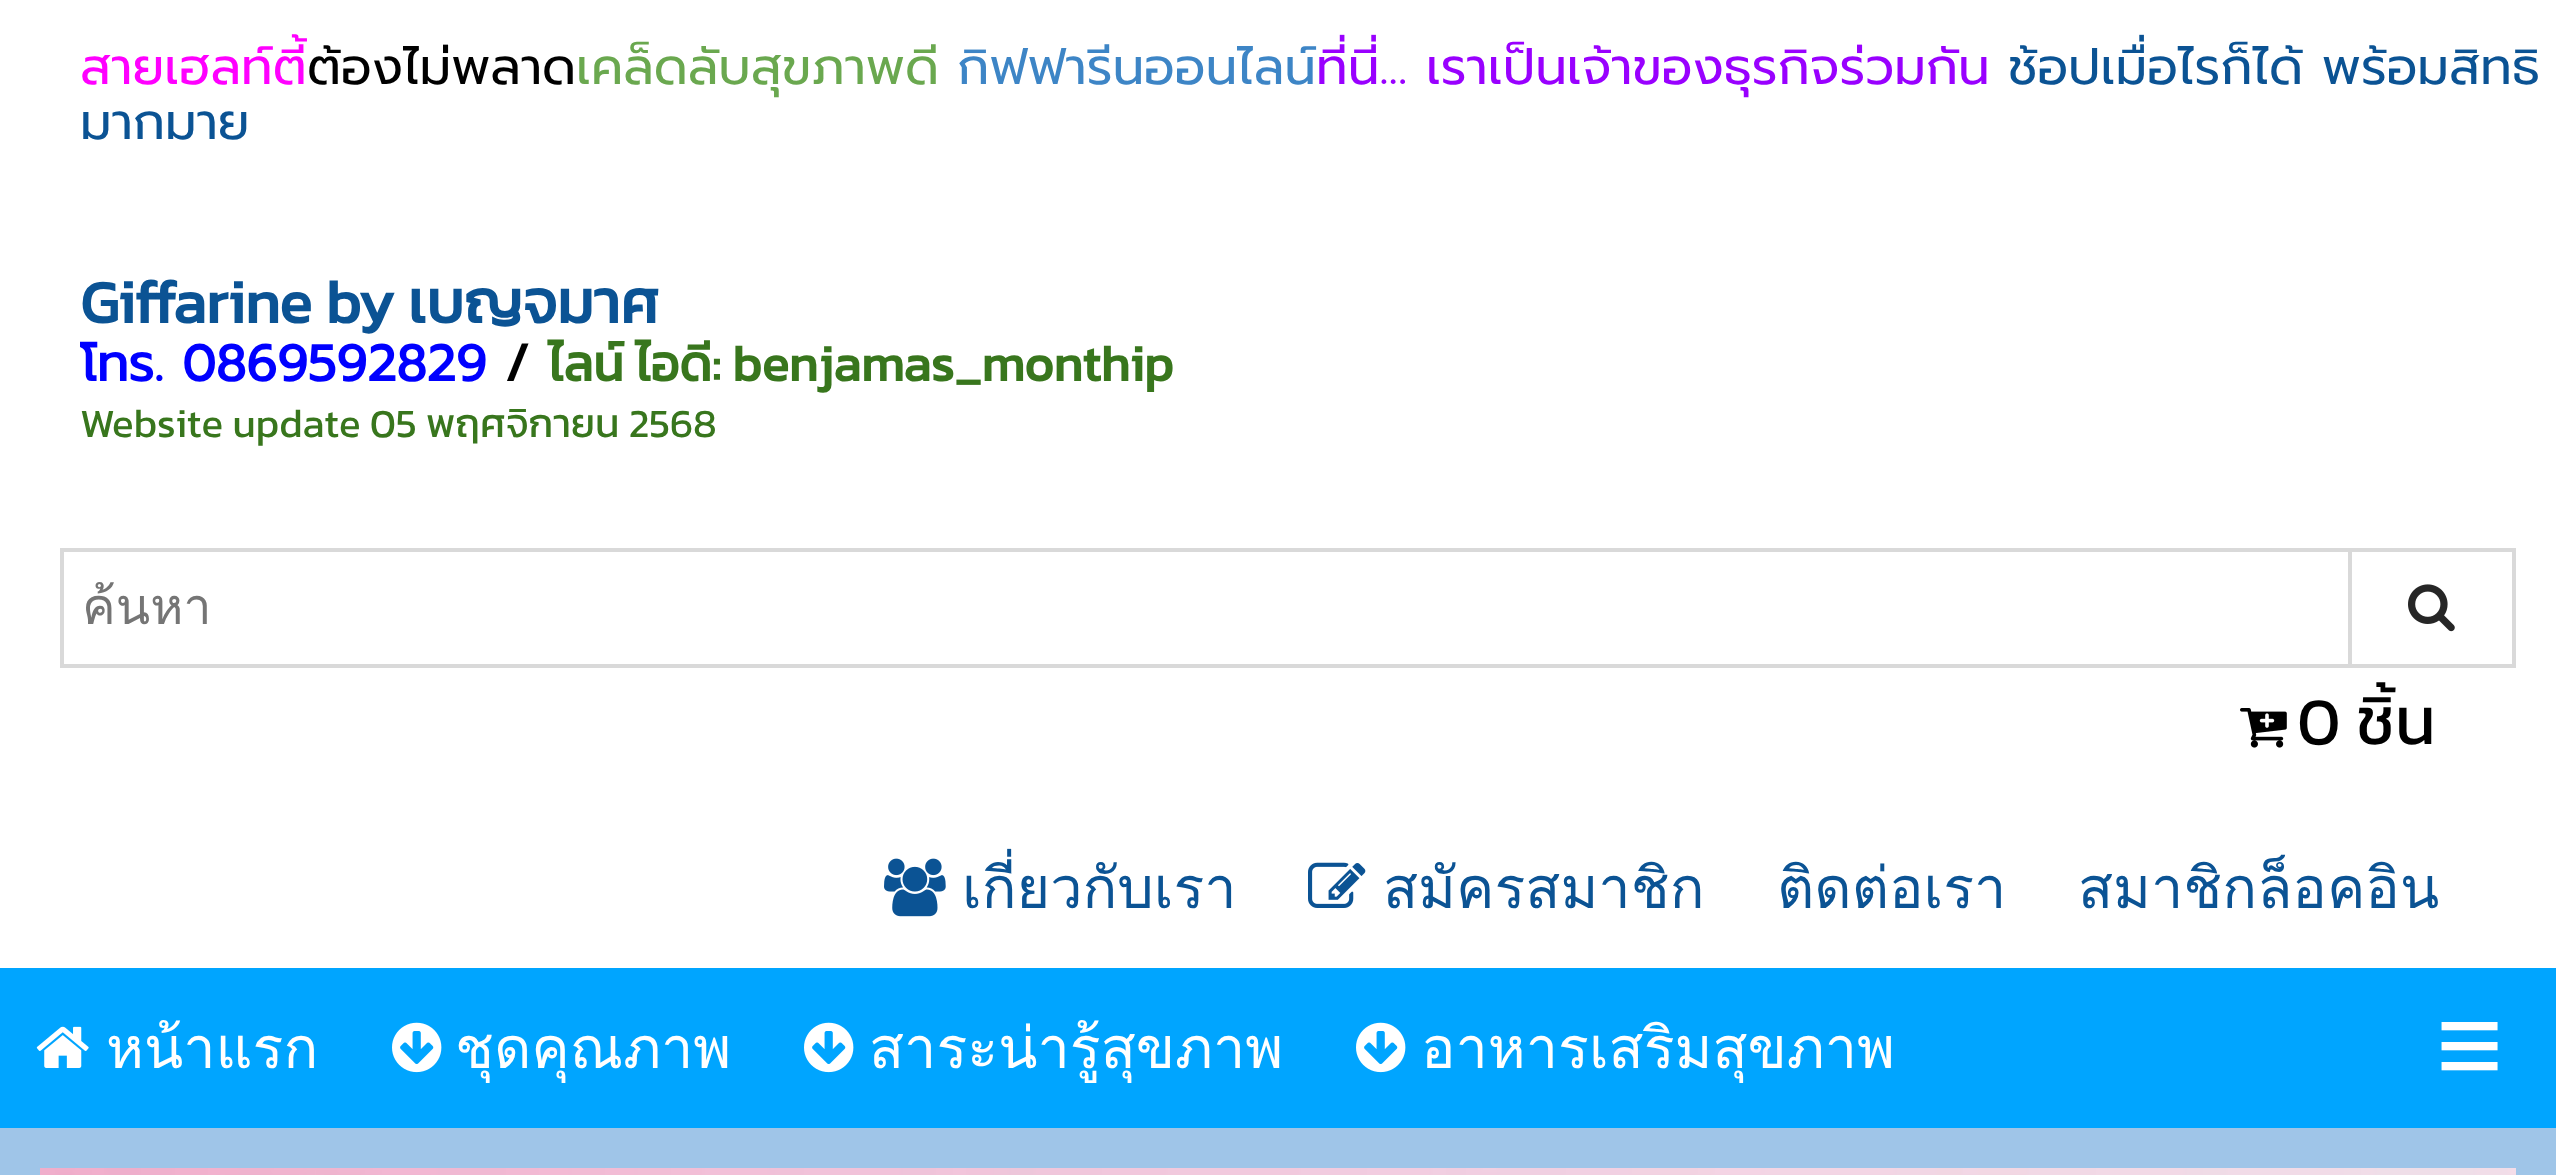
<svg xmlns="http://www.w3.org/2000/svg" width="2556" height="1175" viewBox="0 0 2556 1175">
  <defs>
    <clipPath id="clip1"><path d="M84 568h2220v80H84z"/></clipPath>
  </defs>
  <rect width="100%" height="100%" fill="#fff"/>
  <path d="M62 550h2452v116H62z" fill="none" stroke="#d9d9d9" stroke-width="4"/>
  <path d="M2350 550h164v116H2350z" fill="none" stroke="#d9d9d9" stroke-width="4"/>
  <image x="2408" y="584" width="47" height="48" href="img/1.png"/>
  <image x="2240" y="708" width="47" height="40" href="img/2.png"/>
  <image x="884" y="858" width="62" height="59" href="img/3.png"/>
  <image x="1308" y="862" width="58" height="46" href="img/4.png"/>
  <path d="M0 968h2556v160H0z" fill="#00a5ff"/>
  <image x="36" y="1026" width="53" height="42" href="img/5.png"/>
  <image x="392" y="1022" width="50" height="51" href="img/6.png"/>
  <image x="804" y="1022" width="50" height="51" href="img/6.png"/>
  <image x="1356" y="1022" width="50" height="51" href="img/6.png"/>
  <path d="M0 1128h2556v47H0z" fill="#9fc5e8"/>
  <image x="40" y="1168" width="2476" height="7" href="img/7.png"/>
  <text x="80" y="84" font-family="Prompt" font-size="50.4" fill="#f0f">สายเฮลท์ตี้</text>
  <text x="307" y="84" font-family="Prompt" font-size="50.4" fill="#000">ต้องไม่พลาด</text>
  <text x="576" y="84" font-family="Prompt" font-size="50.4" fill="#6aa84f">เคล็ดลับสุขภาพดี</text>
  <text x="957" y="84" font-family="Prompt" font-size="50.4" fill="#3d85c6">กิฟฟารีนออนไลน์</text>
  <text x="1316" y="84" font-family="Prompt" font-size="50.4" fill="#90f">ที่นี่... เราเป็นเจ้าของธุรกิจร่วมกัน</text>
  <g font-family="Prompt" font-size="50.4" fill="#0b5394">
    <text x="2008" y="84">ช้อปเมื่อไรก็ได้ พร้อมสิทธิ</text>
    <text x="80" y="139">มากมาย</text>
  </g>
  <text x="80" y="323" font-family="Kanit" font-size="60.5" font-weight="bold" fill="#0b5394">Giffarine by เบญจมาศ</text>
  <text x="80" y="381" font-family="Prompt" font-size="50.4" font-weight="bold" fill="#00f">โทร. 0869592829</text>
  <text x="505" y="381" font-family="Prompt" font-size="50.4" font-weight="bold" fill="#000">/</text>
  <text x="548" y="381" font-family="Kanit" font-size="50.4" font-weight="bold" fill="#38761d">ไลน์ ไอดี: benjamas_monthip</text>
  <text x="80" y="437" font-family="Kanit" font-size="40.3" fill="#38761d">Website update 05 พฤศจิกายน 2568</text>
  <g clip-path="url(#clip1)">
    <text x="82" y="624" font-family="Loma" font-size="50.4" fill="#757575">ค้นหา</text>
  </g>
  <text x="2297" y="744" font-family="Kanit" font-size="67" fill="#000">0 ชิ้น</text>
  <g font-family="Loma" font-size="57.5" fill="#0b5394">
    <text x="962" y="908">เกี่ยวกับเรา</text>
    <text x="1383" y="908">สมัครสมาชิก</text>
    <text x="1777" y="908">ติดต่อเรา</text>
    <text x="2078" y="908">สมาชิกล็อคอิน</text>
  </g>
  <g font-family="Loma" font-size="57.5" fill="#fff">
    <text x="106" y="1068">หน้าแรก</text>
    <text x="455" y="1068">ชุดคุณภาพ</text>
    <text x="869" y="1068">สาระน่ารู้สุขภาพ</text>
    <text x="1421" y="1068">อาหารเสริมสุขภาพ</text>
  </g>
  <text x="2436" y="1084" font-family="Liberation Sans" font-size="115" fill="#fff">≡</text>
</svg>
